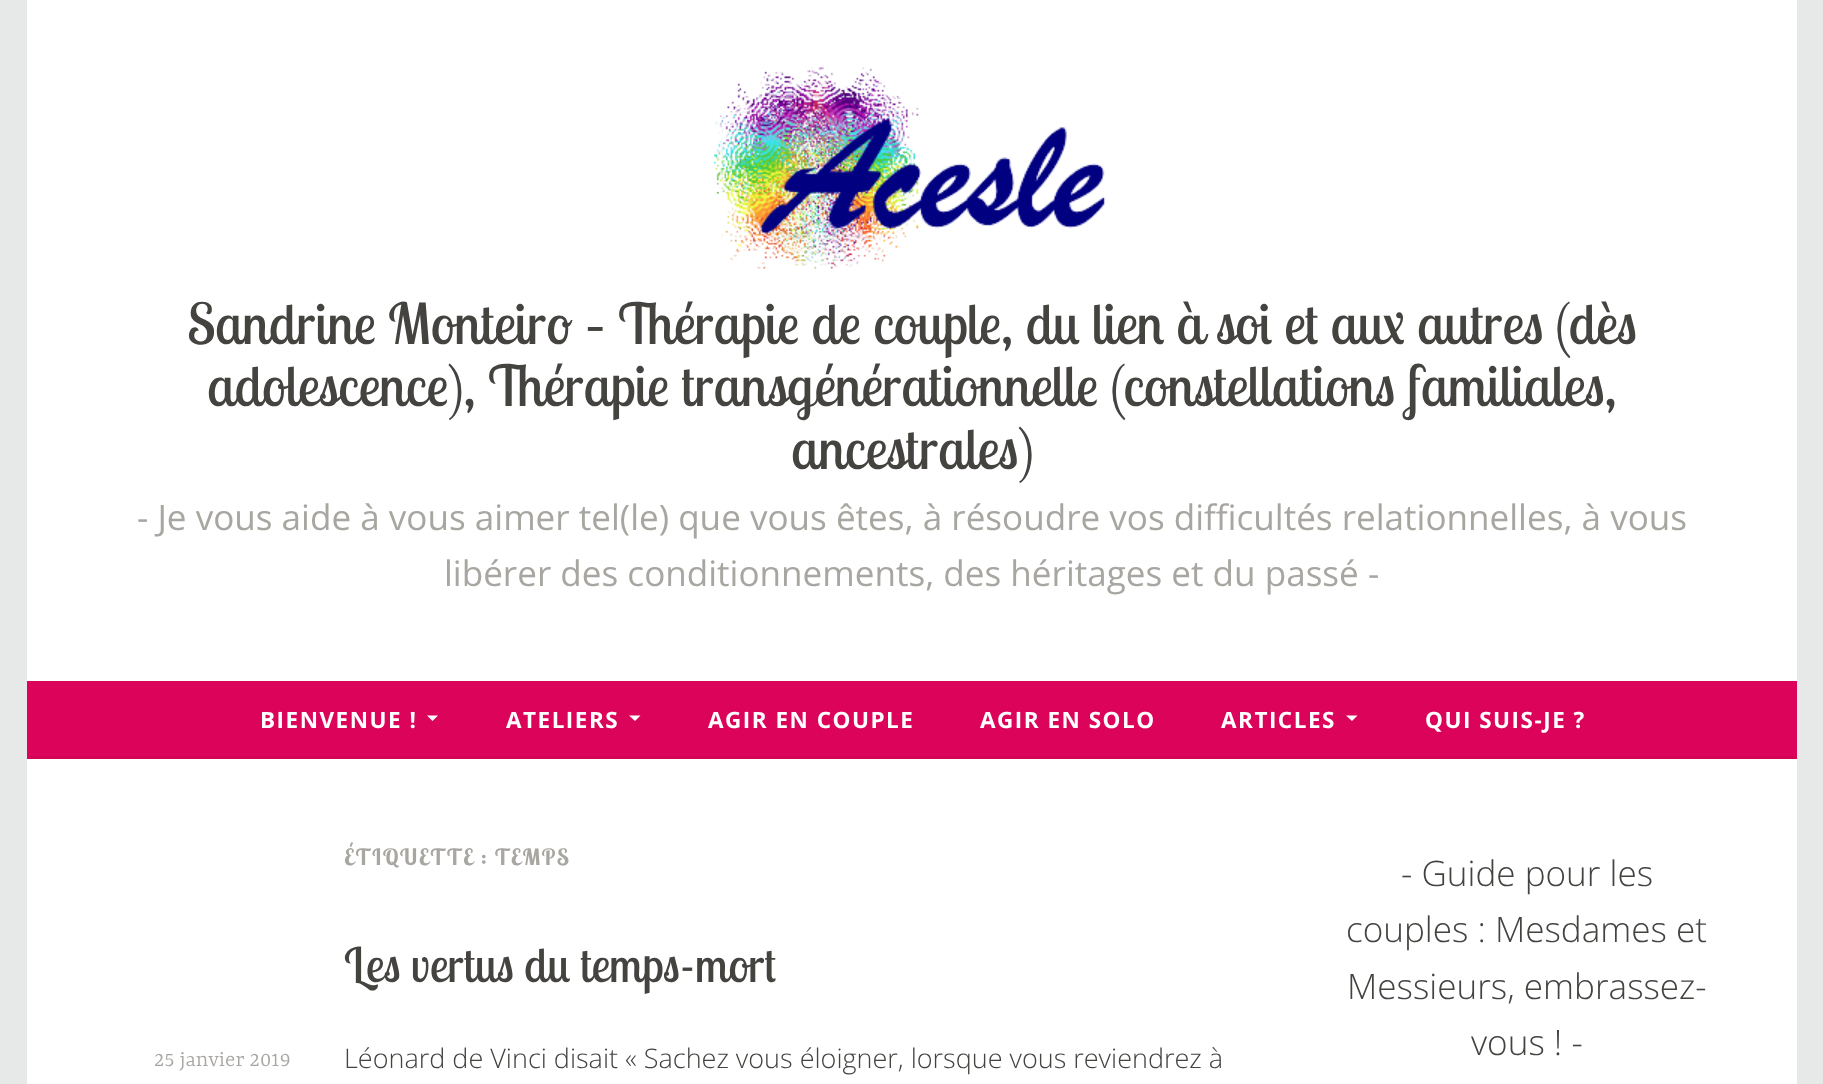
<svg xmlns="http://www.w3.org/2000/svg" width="1823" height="1084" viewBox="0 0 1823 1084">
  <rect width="100%" height="100%" fill="#e7e8e8"/>
  <path d="M27 0h1770v681H27z" fill="#fff"/>
  <image x="714" y="67" width="392" height="202" href="img/1.png"/>
  <path d="M27 681h1770v75H27z" fill="#db045a"/>
  <path d="M27 756h1770v3H27z" fill="#d40457"/>
  <path d="M427 715.5H438L432.5 721Z" fill="#fff"/>
  <path d="M629 715.5H640.5L635 721Z" fill="#fff"/>
  <path d="M1346 715.5H1357.5L1352 721Z" fill="#fff"/>
  <path d="M27 759h1770v325H27z" fill="#fff"/>
  <g font-family="Lobster Two" font-size="56.55" fill="#444340">
    <text x="187" y="344">Sandrine Monteiro – Thérapie de couple, du lien à soi et aux autres (dès</text>
    <text x="207" y="406">adolescence), Thérapie transgénérationnelle (constellations familiales,</text>
    <text x="791" y="469">ancestrales)</text>
  </g>
  <g font-family="Open Sans" font-size="35.1" fill="#a8a6a1">
    <text x="137" y="530">- Je vous aide à vous aimer tel(le) que vous êtes, à résoudre vos difficultés relationnelles, à vous</text>
    <text x="444" y="586">libérer des conditionnements, des héritages et du passé</text>
    <text x="1368" y="586">-</text>
  </g>
  <g font-family="Open Sans" font-size="22.5" font-weight="bold" letter-spacing="1.5" fill="#fff">
    <text x="260" y="728">BIENVENUE !</text>
    <text x="506" y="728">ATELIERS</text>
    <text x="708" y="728">AGIR EN COUPLE</text>
    <text x="980" y="728">AGIR EN SOLO</text>
    <text x="1221" y="728">ARTICLES</text>
    <text x="1425" y="728">QUI SUIS-JE ?</text>
  </g>
  <text x="344" y="865" font-family="Lobster Two" font-size="22.5" font-weight="bold" letter-spacing="1.5" fill="#a8a6a1">ÉTIQUETTE : TEMPS</text>
  <text x="344" y="982" font-family="Lobster Two" font-size="48" fill="#444340">Les vertus du temps-mort</text>
  <text x="154" y="1066" font-family="Yrsa" font-size="24" font-weight="300" fill="#a8a6a1">25 janvier 2019</text>
  <text x="344" y="1068" font-family="Open Sans" font-size="27" font-weight="300" fill="#444340">Léonard de Vinci disait « Sachez vous éloigner, lorsque vous reviendrez à</text>
  <g font-family="Open Sans" font-size="35.1" font-weight="300" fill="#444340">
    <text x="1401" y="886">- Guide pour les</text>
    <text x="1346" y="942">couples : Mesdames et</text>
    <text x="1347" y="999">Messieurs, embrassez-</text>
    <text x="1471" y="1055">vous ! -</text>
  </g>
</svg>
